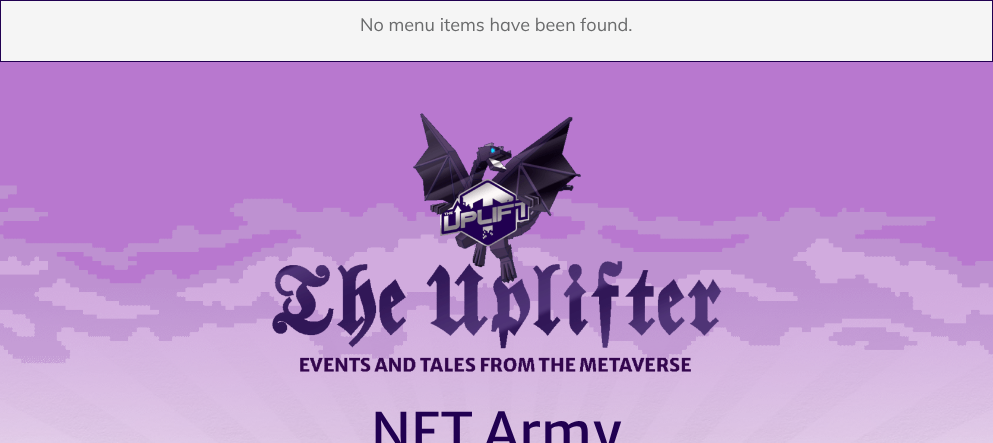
<svg xmlns="http://www.w3.org/2000/svg" width="993" height="443" viewBox="0 0 993 443">
  <rect width="100%" height="100%" fill="#210051"/>
  <path d="M1 1h991v60H1z" fill="#f5f5f5"/>
  <image x="0" y="62" width="993" height="381" href="img/1.png"/>
  <image x="272" y="113" width="450" height="259" href="img/2.png"/>
  <text x="360" y="31" font-family="Muli" font-size="18" fill="#6a6b6c">No menu items have been found.</text>
  <text x="371" y="451" font-family="Merriweather Sans" font-size="53" fill="#210051">NFT Army</text>
</svg>
